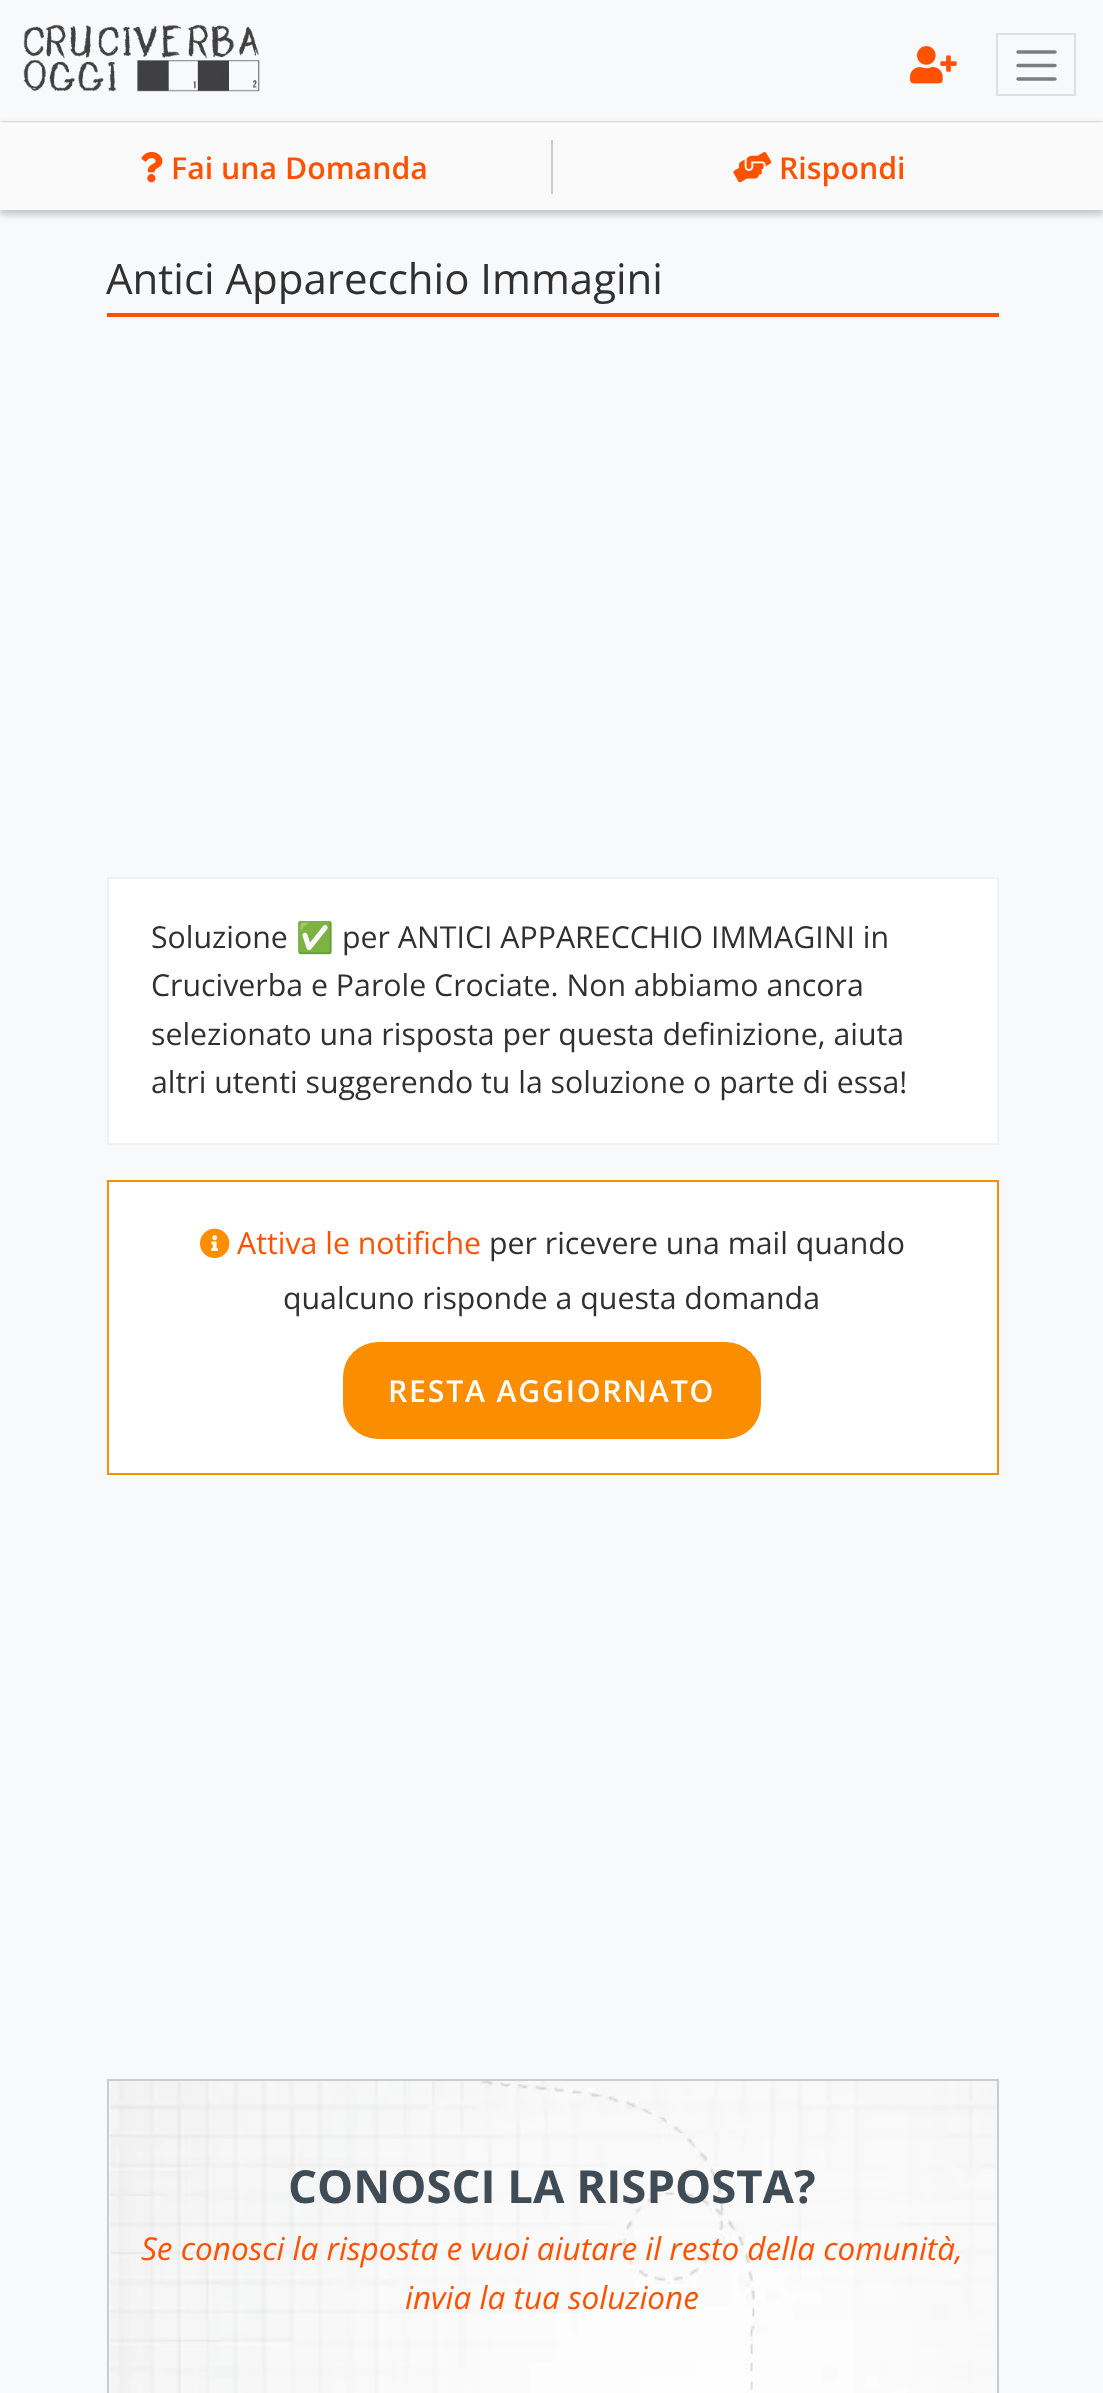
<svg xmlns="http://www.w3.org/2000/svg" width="1103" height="2393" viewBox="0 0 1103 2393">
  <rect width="100%" height="100%" fill="#f8f9fa"/>
  <path d="M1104 122H0L2 121H1102Z" fill="#e0e0e0"/>
  <image x="23" y="24" width="237" height="68" href="img/1.png"/>
  <image x="910" y="46" width="47" height="38" href="img/2.png"/>
  <path d="M997 34h78v61H997z" fill="none" stroke="#dfe0e1" stroke-width="2"/>
  <path d="M1018 52H1055M1018 65.5H1055M1018 79H1055" fill="none" stroke="#7c7d7d" stroke-width="3.4" stroke-linecap="round"/>
  <path d="M0 128h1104v87H0z" fill="#0000000d" filter="blur(2.5px)"/>
  <path d="M0 126h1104v88H0z" fill="#0000002e" filter="blur(4.5px)"/>
  <path d="M0 123h1103v87H0z" fill="#fafafa"/>
  <path d="M551 140h2v54H551z" fill="#ccc"/>
  <image x="141" y="152" width="22" height="31" href="img/3.png"/>
  <image x="733" y="152" width="39" height="31" href="img/4.png"/>
  <path d="M107 313h892v4H107z" fill="#ff5200"/>
  <path d="M108 878h890v266H108z" fill="#fff" stroke="#f1f1f1" stroke-width="2"/>
  <path d="M108 1181h890v293H108z" fill="#fff" stroke="#fb8d00" stroke-width="2"/>
  <image x="200" y="1228" width="30" height="31" href="img/5.png"/>
  <rect x="343" y="1342" width="418" height="97" rx="35" fill="#fb8d00"/>
  <image x="109" y="2081" width="888" height="312" href="img/6.png"/>
  <path d="M108 2080h890v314H108z" fill="none" stroke="#ccc" stroke-width="2"/>
  <g font-family="Open Sans" font-size="30.3" font-weight="600" fill="#ff5200">
    <text x="171" y="179">Fai una Domanda</text>
    <text x="779" y="179">Rispondi</text>
  </g>
  <text x="106" y="294" font-family="Open Sans" font-size="42" fill="#313030">Antici Apparecchio Immagini</text>
  <text x="151" y="948" font-family="Open Sans" font-size="30.3" fill="#313030">Soluzione</text>
  <text x="296" y="948" font-family="Noto Color Emoji" font-size="30.3" fill="#313030">✅</text>
  <g font-family="Open Sans" font-size="30.3" fill="#313030">
    <text x="342" y="948">per ANTICI APPARECCHIO IMMAGINI in</text>
    <text x="151" y="996">Cruciverba e Parole Crociate. Non abbiamo ancora</text>
    <text x="151" y="1045">selezionato una risposta per questa definizione, aiuta</text>
    <text x="151" y="1093">altri utenti suggerendo tu la soluzione o parte di essa!</text>
  </g>
  <text x="237" y="1254" font-family="Open Sans" font-size="30.3" fill="#ff5200">Attiva le notifiche</text>
  <g font-family="Open Sans" font-size="30.3" fill="#313030">
    <text x="489" y="1254">per ricevere una mail quando</text>
    <text x="283" y="1309">qualcuno risponde a questa domanda</text>
  </g>
  <text x="388" y="1402" font-family="Open Sans" font-size="30.3" font-weight="600" letter-spacing="1.75" fill="#fff">RESTA AGGIORNATO</text>
  <text x="288" y="2203" font-family="Open Sans" font-size="45.5" font-weight="bold" fill="#3f4b55">CONOSCI LA RISPOSTA?</text>
  <g font-family="Open Sans" font-size="31.5" font-style="italic" fill="#ff5200">
    <text x="141" y="2260">Se conosci la risposta e vuoi aiutare il resto della comunità,</text>
    <text x="405" y="2309">invia la tua soluzione</text>
  </g>
</svg>
